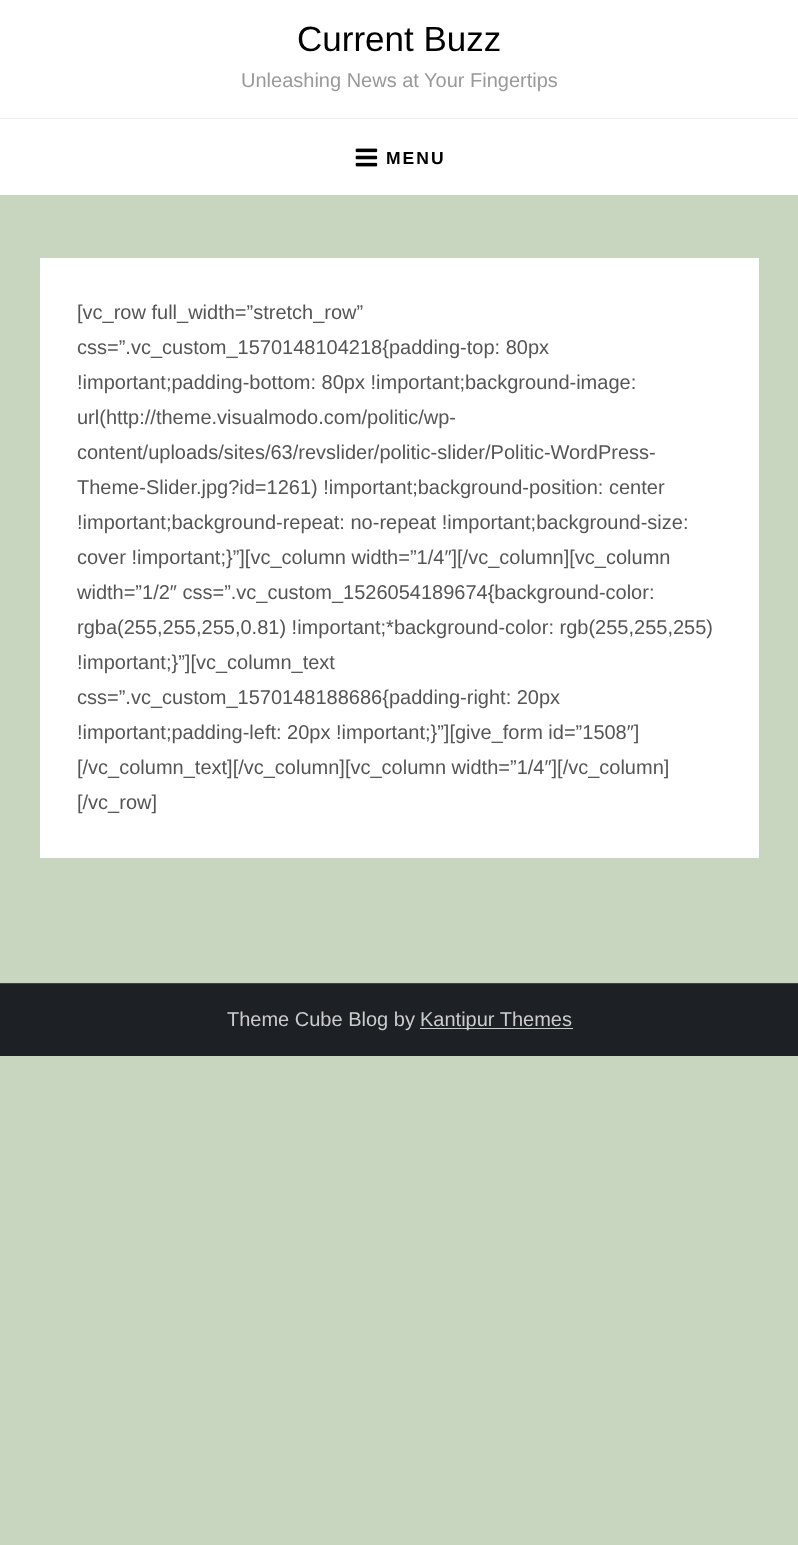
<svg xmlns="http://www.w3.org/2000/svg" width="798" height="1545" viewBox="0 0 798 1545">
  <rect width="100%" height="100%" fill="#c8d6c0"/>
  <path d="M0 0h798v195H0z" fill="#fff"/>
  <path d="M0 118h798v1H0z" fill="#eee"/>
  <image x="355" y="148" width="23" height="19" href="img/1.png"/>
  <path d="M40 258h719v600H40z" fill="#fff"/>
  <path d="M0 984h798v72H0z" fill="#1d2024"/>
  <path d="M0 983h798v1H0z" fill="#3f4145"/>
  <path d="M420 1028h153v1H420z" fill="#ccc"/>
  <text x="297" y="51" font-family="Liberation Sans" font-size="35" fill="#000">Current Buzz</text>
  <text x="241" y="87" font-family="Liberation Sans" font-size="20" fill="#999">Unleashing News at Your Fingertips</text>
  <text x="386" y="164" font-family="Liberation Sans" font-size="17.5" font-weight="bold" letter-spacing="2" fill="#000">MENU</text>
  <g font-family="Liberation Sans" font-size="20" fill="#555">
    <text x="77" y="319">[vc_row full_width=”stretch_row”</text>
    <text x="77" y="354">css=”.vc_custom_1570148104218{padding-top: 80px</text>
    <text x="77" y="389">!important;padding-bottom: 80px !important;background-image:</text>
    <text x="77" y="424">url(http://theme.visualmodo.com/politic/wp-</text>
    <text x="77" y="459">content/uploads/sites/63/revslider/politic-slider/Politic-WordPress-</text>
    <text x="77" y="494">Theme-Slider.jpg?id=1261) !important;background-position: center</text>
    <text x="77" y="529">!important;background-repeat: no-repeat !important;background-size:</text>
    <text x="77" y="564">cover !important;}”][vc_column width=”1/4″][/vc_column][vc_column</text>
    <text x="77" y="599">width=”1/2″ css=”.vc_custom_1526054189674{background-color:</text>
    <text x="77" y="634">rgba(255,255,255,0.81) !important;*background-color: rgb(255,255,255)</text>
    <text x="77" y="669">!important;}”][vc_column_text</text>
    <text x="77" y="704">css=”.vc_custom_1570148188686{padding-right: 20px</text>
    <text x="77" y="739">!important;padding-left: 20px !important;}”][give_form id=”1508″]</text>
    <text x="77" y="774">[/vc_column_text][/vc_column][vc_column width=”1/4″][/vc_column]</text>
    <text x="77" y="809">[/vc_row]</text>
  </g>
  <g font-family="Liberation Sans" font-size="20" fill="#ccc">
    <text x="227" y="1026">Theme Cube Blog by</text>
    <text x="420" y="1026">Kantipur Themes</text>
  </g>
</svg>
